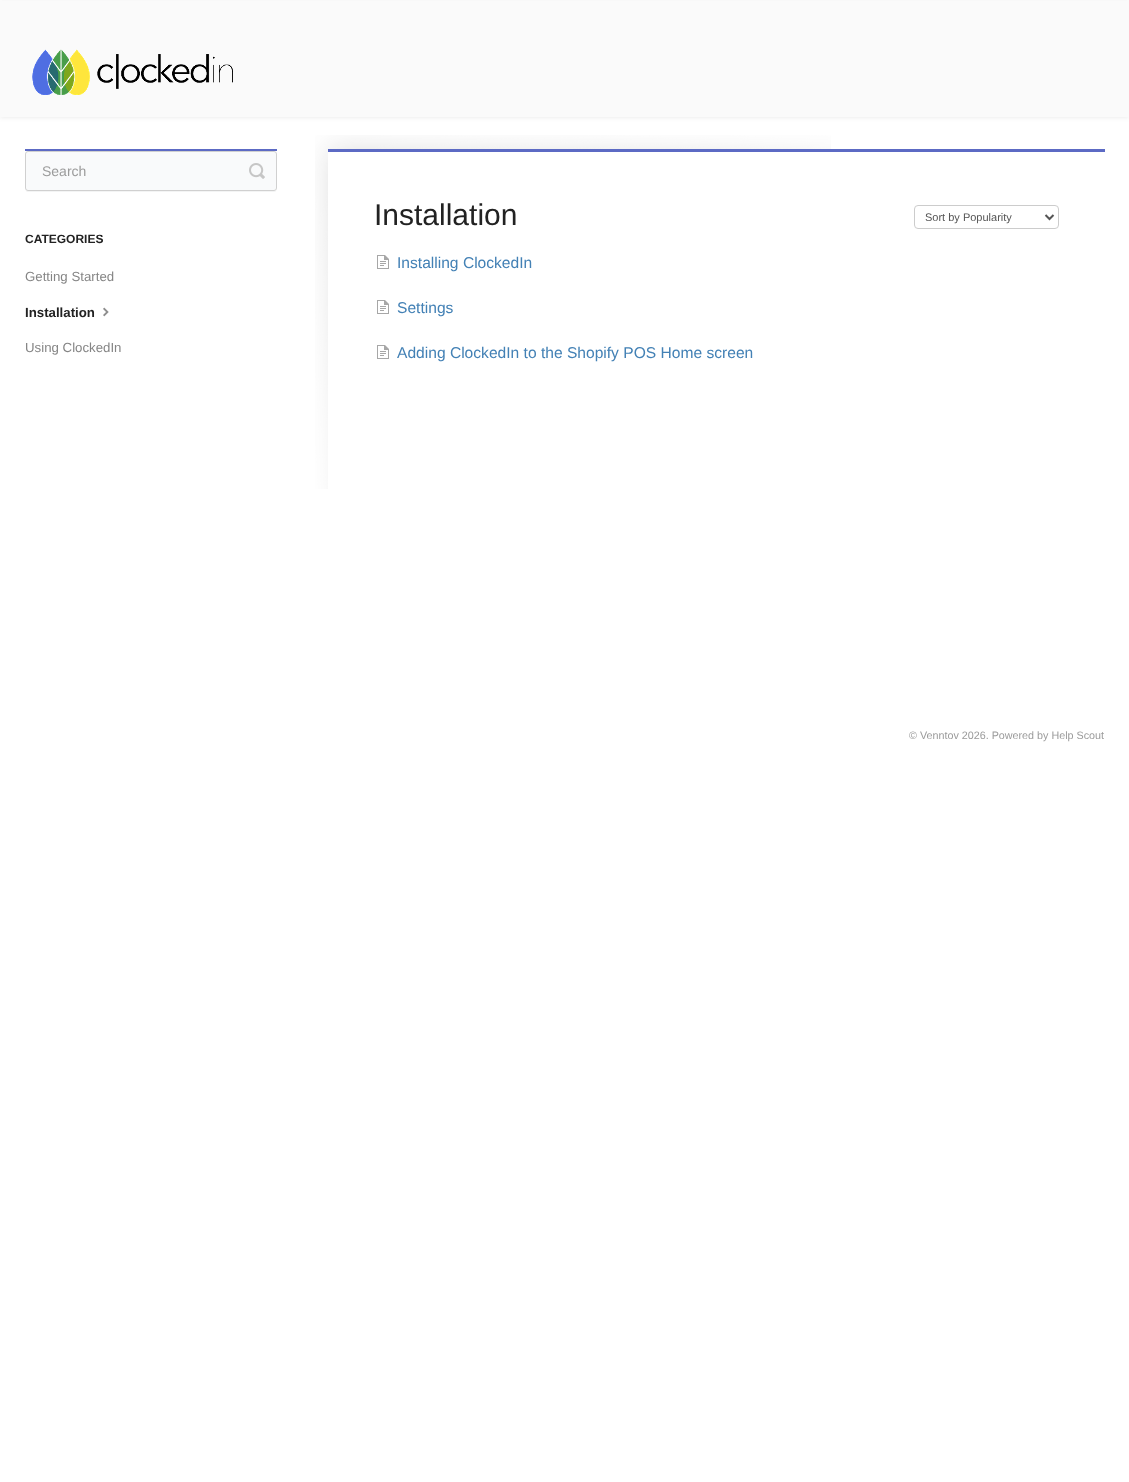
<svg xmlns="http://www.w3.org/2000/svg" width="1129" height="1482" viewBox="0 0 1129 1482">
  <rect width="100%" height="100%" fill="#fff"/>
  <path d="M0 1h1129v117H0z" fill="#00000012" filter="blur(2px)"/>
  <path d="M0 1h1129v116H0z" fill="#fafafa"/>
  <image x="32" y="49" width="201" height="46" href="img/1.png"/>
  <path d="M25 149h252v2H25z" fill="#5c6ac4"/>
  <path d="M25 188C25 190 26 192 28 192H274C276 192 277 190 277 188C277 190 276 191 274 191H28C26 191 25 190 25 188Z" fill="#f3f4f4"/>
  <rect x="25.5" y="151.5" width="251" height="39" rx="2.5" fill="#f9fafb" stroke="#d0d0d0"/>
  <image x="249" y="163" width="16" height="16" href="img/2.png"/>
  <image x="103" y="307" width="6" height="10" href="img/3.png"/>
  <image x="315" y="135" width="516" height="354" href="img/4.png"/>
  <path d="M328 149h777v3H328z" fill="#5c6ac4"/>
  <rect x="914.5" y="205.5" width="144" height="23" rx="3.5" fill="none" stroke="#ccc"/>
  <path d="M1045.5 215L1049.5 219L1053.5 215" fill="none" stroke="#555" stroke-width="2"/>
  <image x="377" y="255" width="12" height="14" href="img/5.png"/>
  <image x="377" y="300" width="12" height="14" href="img/5.png"/>
  <image x="377" y="345" width="12" height="14" href="img/5.png"/>
  <text x="42" y="176" font-family="Liberation Sans" font-size="14" fill="#9b9b9b">Search</text>
  <text x="25" y="243" font-family="Liberation Sans" font-size="12" font-weight="bold" fill="#222">CATEGORIES</text>
  <text x="25" y="281" font-family="Liberation Sans" font-size="13.25" fill="#858585">Getting Started</text>
  <text x="25" y="317" font-family="Liberation Sans" font-size="13.25" font-weight="bold" fill="#222">Installation</text>
  <text x="25" y="352" font-family="Liberation Sans" font-size="13.25" fill="#858585">Using ClockedIn</text>
  <text x="374" y="225" font-family="Liberation Sans" font-size="30" fill="#222">Installation</text>
  <text x="925" y="221" font-family="Liberation Sans" font-size="11" fill="#555">Sort by Popularity</text>
  <g font-family="Liberation Sans" font-size="15.6" fill="#4381b5">
    <text x="397" y="268">Installing ClockedIn</text>
    <text x="397" y="313">Settings</text>
    <text x="397" y="358">Adding ClockedIn to the Shopify POS Home screen</text>
  </g>
  <text x="909" y="739" font-family="Liberation Sans" font-size="10.75" fill="#9b9b9b">© Venntov 2026. Powered by Help Scout</text>
</svg>
